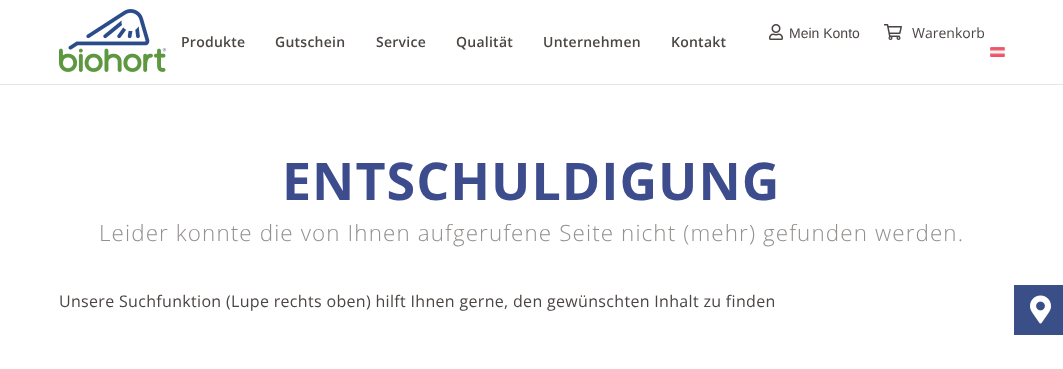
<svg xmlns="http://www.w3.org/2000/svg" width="1063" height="369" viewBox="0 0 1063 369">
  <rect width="100%" height="100%" fill="#fff"/>
  <path d="M0 84h1063v1H0z" fill="#e5e5e5"/>
  <image x="59" y="9" width="107" height="63" href="img/1.png"/>
  <image x="769" y="24" width="14" height="16" href="img/2.png"/>
  <image x="884" y="24" width="18" height="16" href="img/3.png"/>
  <image x="990" y="47" width="15" height="10" href="img/4.png"/>
  <path d="M1014 285h49v50H1014z" fill="#3a4e87"/>
  <image x="1030" y="295" width="21" height="29" href="img/5.png"/>
  <text x="789" y="38" font-family="Liberation Sans" font-size="14" fill="#4b4643">Mein Konto</text>
  <text x="912" y="38" font-family="Open Sans" font-size="14" fill="#4b4643">Warenkorb</text>
  <g font-family="Open Sans" font-size="14" font-weight="600" letter-spacing="0.25" fill="#4b4643">
    <text x="181" y="47">Produkte</text>
    <text x="275" y="47">Gutschein</text>
    <text x="376" y="47">Service</text>
    <text x="456" y="47">Qualität</text>
    <text x="543" y="47">Unternehmen</text>
    <text x="671" y="47">Kontakt</text>
  </g>
  <text x="282" y="200" font-family="Open Sans" font-size="52" font-weight="bold" letter-spacing="1" fill="#3d4c8d">ENTSCHULDIGUNG</text>
  <text x="99" y="241" font-family="Open Sans" font-size="22.4" font-weight="300" letter-spacing="1.12" fill="#93908e">Leider konnte die von Ihnen aufgerufene Seite nicht (mehr) gefunden werden.</text>
  <text x="59" y="307" font-family="Open Sans" font-size="16" letter-spacing="0.32" fill="#4b4643">Unsere Suchfunktion (Lupe rechts oben) hilft Ihnen gerne, den gewünschten Inhalt zu finden</text>
</svg>
